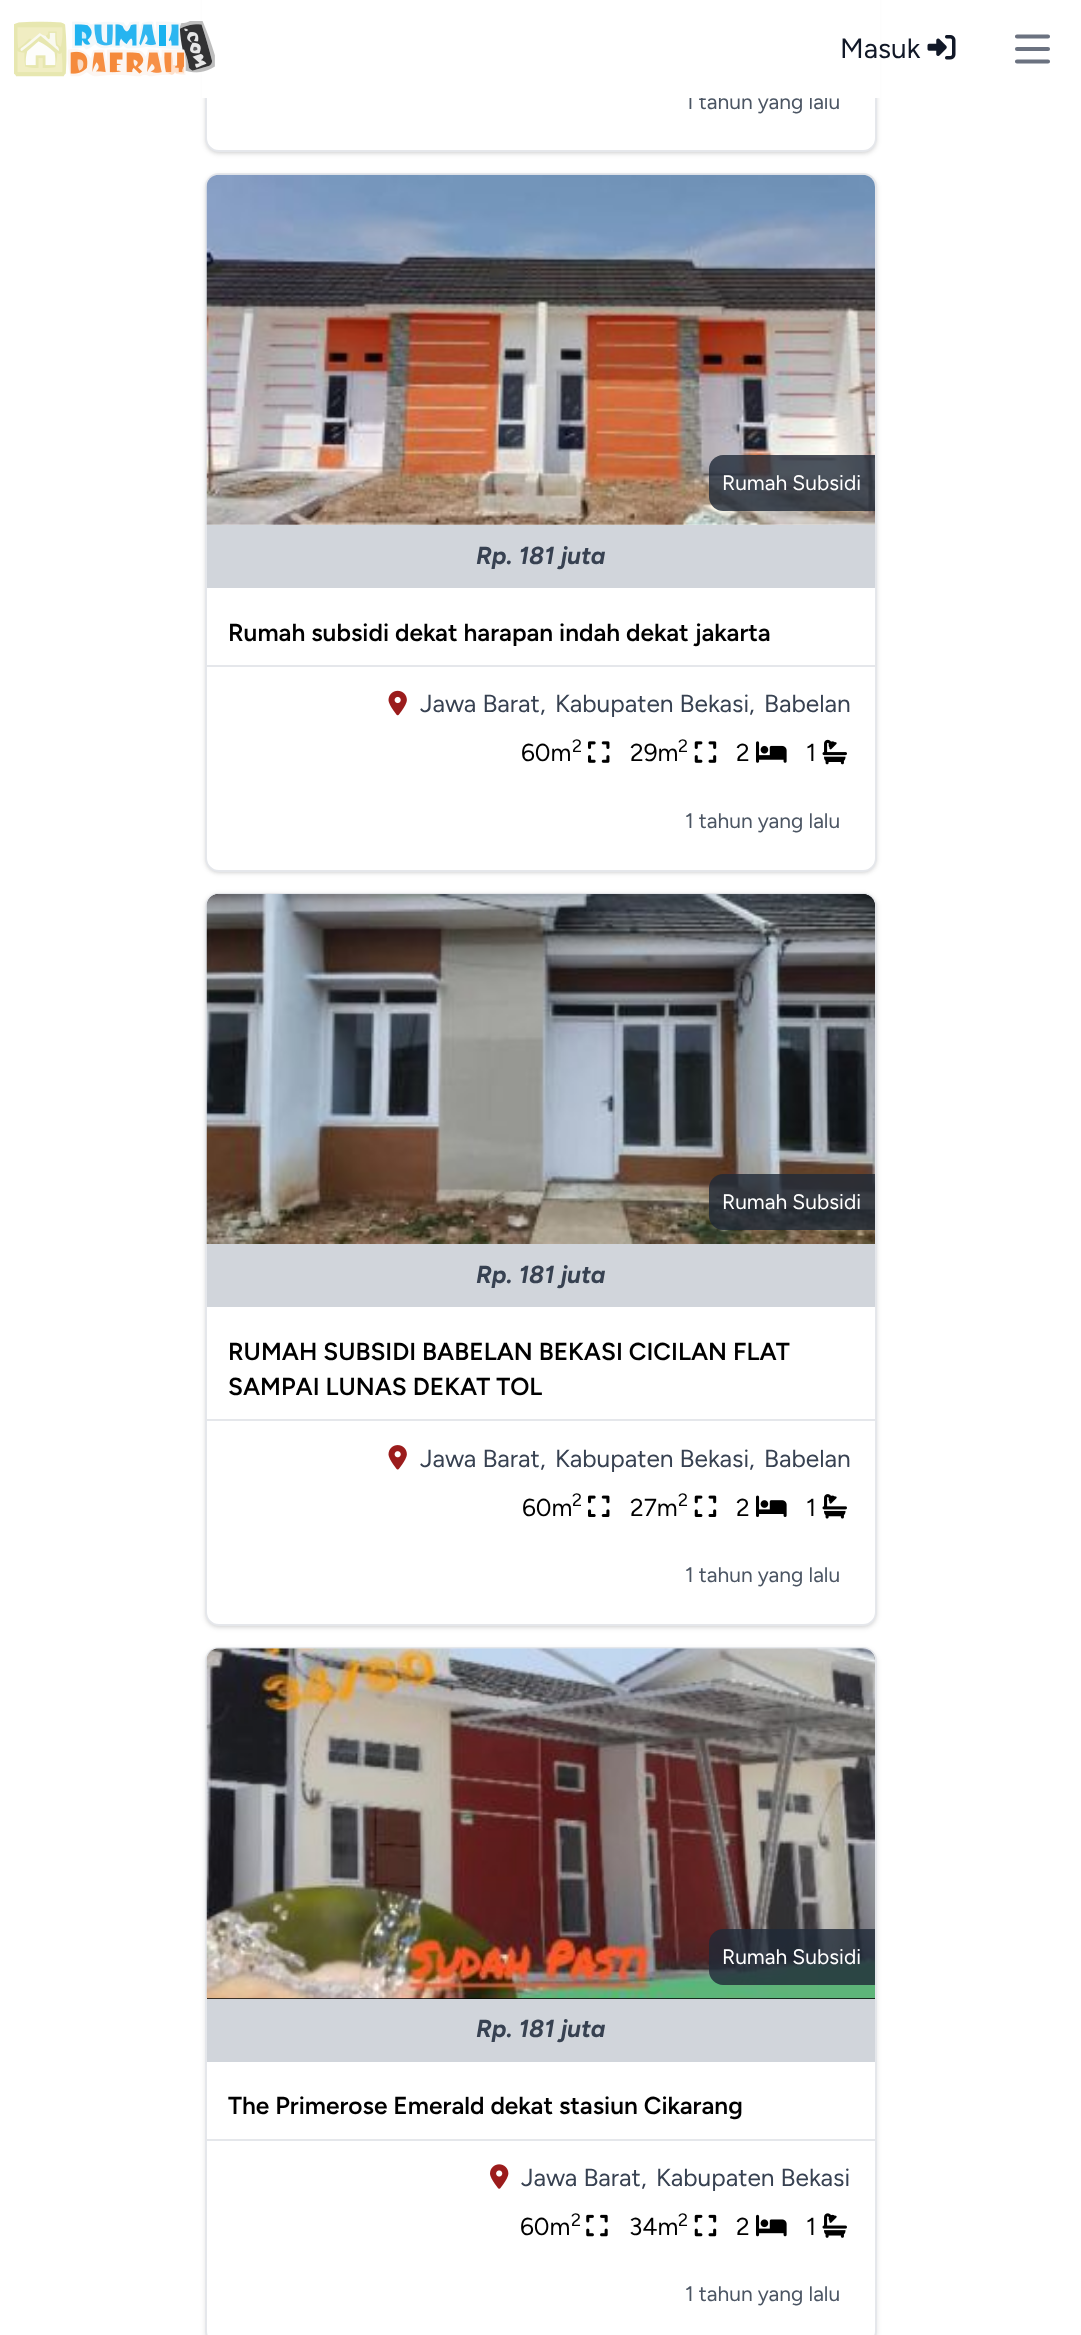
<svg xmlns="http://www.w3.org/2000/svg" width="1081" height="2335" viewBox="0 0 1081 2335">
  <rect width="100%" height="100%" fill="#fff"/>
  <image x="927" y="35" width="29" height="25" href="img/2.png"/>
  <path d="M1017 36.5H1048M1017 49H1048M1017 61.5H1048" fill="none" stroke="#6b7280" stroke-width="4.1" stroke-linecap="round" stroke-linejoin="round"/>
  <rect x="207" y="-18" width="668" height="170" rx="12" fill="#0000001a" filter="blur(2px)"/>
  <rect x="205" y="-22" width="672" height="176" rx="14" fill="#0000001a" filter="blur(2.5px)"/>
  <rect x="206" y="-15" width="670" height="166" rx="13" fill="#fff" stroke="#e5e7eb" stroke-width="2"/>
  <rect x="207" y="177" width="668" height="695" rx="12" fill="#0000001a" filter="blur(2px)"/>
  <rect x="205" y="175" width="672" height="698" rx="14" fill="#0000001a" filter="blur(2.5px)"/>
  <rect x="206" y="174" width="670" height="697" rx="13" fill="#fff" stroke="#e5e7eb" stroke-width="2"/>
  <image x="206" y="174" width="669" height="351" href="img/3.png"/>
  <path d="M723 455H875V511H723C715.5 511 709 504.5 709 497V469C709 461.5 715.5 455 723 455Z" fill="#1f2937cc"/>
  <path d="M207 525h668v63H207z" fill="#d1d5db"/>
  <path d="M207 665h668v2H207z" fill="#e5e7eb"/>
  <image x="388" y="690" width="19" height="26" href="img/4.png"/>
  <image x="588" y="741" width="22" height="22" href="img/5.png"/>
  <image x="694" y="741" width="23" height="22" href="img/6.png"/>
  <image x="756" y="741" width="31" height="22" href="img/7.png"/>
  <image x="822" y="739" width="25" height="26" href="img/8.png"/>
  <rect x="207" y="896" width="668" height="730" rx="12" fill="#0000001a" filter="blur(2px)"/>
  <rect x="205" y="894" width="672" height="734" rx="14" fill="#0000001a" filter="blur(2.5px)"/>
  <rect x="206" y="894" width="670" height="731" rx="13" fill="#fff" stroke="#e5e7eb" stroke-width="2"/>
  <path d="M219 894H863C869.5 894 875 899.5 875 906V1244H207V906C207 899.5 212.5 894 219 894Z" fill="#000"/>
  <image x="206" y="894" width="669" height="350" href="img/9.png"/>
  <path d="M723 1174H875V1230H723C715.5 1230 709 1223.5 709 1216V1188C709 1180.5 715.5 1174 723 1174Z" fill="#1f2937cc"/>
  <path d="M207 1244h668v63H207z" fill="#d1d5db"/>
  <path d="M207 1419h668v2H207z" fill="#e5e7eb"/>
  <image x="388" y="1445" width="19" height="25" href="img/10.png"/>
  <image x="588" y="1495" width="22" height="22" href="img/11.png"/>
  <image x="694" y="1495" width="23" height="22" href="img/12.png"/>
  <image x="756" y="1495" width="31" height="22" href="img/13.png"/>
  <image x="822" y="1494" width="25" height="25" href="img/14.png"/>
  <rect x="205" y="1649" width="672" height="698" rx="14" fill="#0000001a" filter="blur(2.5px)"/>
  <rect x="206" y="1648" width="670" height="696" rx="13" fill="#fff" stroke="#e5e7eb" stroke-width="2"/>
  <path d="M219 1649H863C869.5 1649 875 1654.5 875 1661V1999H207V1661C207 1654.5 212.5 1649 219 1649Z" fill="#000"/>
  <image x="206" y="1648" width="669" height="351" href="img/15.png"/>
  <path d="M723 1929H875V1985H723C715.5 1985 709 1978.5 709 1971V1943C709 1935.5 715.5 1929 723 1929Z" fill="#1f2937cc"/>
  <path d="M207 1999h668v63H207z" fill="#d1d5db"/>
  <path d="M207 2139h668v2H207z" fill="#e5e7eb"/>
  <image x="490" y="2164" width="19" height="25" href="img/16.png"/>
  <image x="586" y="2214" width="22" height="23" href="img/17.png"/>
  <image x="694" y="2214" width="23" height="23" href="img/18.png"/>
  <image x="756" y="2214" width="31" height="23" href="img/19.png"/>
  <image x="822" y="2213" width="25" height="25" href="img/20.png"/>
  <text x="685" y="109" font-family="Figtree" font-size="21" fill="#4b5563">1 tahun yang lalu</text>
  <path d="M202 0h678v98H202z" fill="#fff"/>
  <text x="840" y="58" font-family="Figtree" font-size="28" fill="#111827">Masuk</text>
  <image x="14" y="21" width="201" height="56" href="img/1.png"/>
  <text x="722" y="490" font-family="Figtree" font-size="21" fill="#fff">Rumah Subsidi</text>
  <text x="476" y="564" font-family="Figtree" font-size="24.5" font-weight="bold" font-style="italic" fill="#374151">Rp. 181 juta</text>
  <text x="228" y="641" font-family="Figtree" font-size="24.5" font-weight="600" fill="#000">Rumah subsidi dekat harapan indah dekat jakarta</text>
  <g font-family="Figtree" font-size="24.5" fill="#374151">
    <text x="420" y="712">Jawa Barat,</text>
    <text x="555" y="712">Kabupaten Bekasi,</text>
    <text x="764" y="712">Babelan</text>
  </g>
  <text x="521" y="761" font-family="Figtree" font-size="24.5" fill="#000">60m</text>
  <text x="572" y="752" font-family="Figtree" font-size="18" fill="#000">2</text>
  <text x="630" y="761" font-family="Figtree" font-size="24.5" fill="#000">29m</text>
  <text x="678" y="752" font-family="Figtree" font-size="18" fill="#000">2</text>
  <g font-family="Figtree" font-size="24.5" fill="#000">
    <text x="736" y="761">2</text>
    <text x="806" y="761">1</text>
  </g>
  <text x="685" y="828" font-family="Figtree" font-size="21" fill="#4b5563">1 tahun yang lalu</text>
  <text x="722" y="1209" font-family="Figtree" font-size="21" fill="#fff">Rumah Subsidi</text>
  <text x="476" y="1283" font-family="Figtree" font-size="24.5" font-weight="bold" font-style="italic" fill="#374151">Rp. 181 juta</text>
  <g font-family="Figtree" font-size="24.5" font-weight="600" fill="#000">
    <text x="228" y="1360">RUMAH SUBSIDI BABELAN BEKASI CICILAN FLAT</text>
    <text x="228" y="1395">SAMPAI LUNAS DEKAT TOL</text>
  </g>
  <g font-family="Figtree" font-size="24.5" fill="#374151">
    <text x="420" y="1467">Jawa Barat,</text>
    <text x="555" y="1467">Kabupaten Bekasi,</text>
    <text x="764" y="1467">Babelan</text>
  </g>
  <text x="522" y="1516" font-family="Figtree" font-size="24.5" fill="#000">60m</text>
  <text x="572" y="1506" font-family="Figtree" font-size="18" fill="#000">2</text>
  <text x="630" y="1516" font-family="Figtree" font-size="24.5" fill="#000">27m</text>
  <text x="678" y="1506" font-family="Figtree" font-size="18" fill="#000">2</text>
  <g font-family="Figtree" font-size="24.5" fill="#000">
    <text x="736" y="1516">2</text>
    <text x="806" y="1516">1</text>
  </g>
  <text x="685" y="1582" font-family="Figtree" font-size="21" fill="#4b5563">1 tahun yang lalu</text>
  <text x="722" y="1964" font-family="Figtree" font-size="21" fill="#fff">Rumah Subsidi</text>
  <text x="476" y="2037" font-family="Figtree" font-size="24.5" font-weight="bold" font-style="italic" fill="#374151">Rp. 181 juta</text>
  <text x="228" y="2114" font-family="Figtree" font-size="24.5" font-weight="600" fill="#000">The Primerose Emerald dekat stasiun Cikarang</text>
  <g font-family="Figtree" font-size="24.5" fill="#374151">
    <text x="521" y="2186">Jawa Barat,</text>
    <text x="656" y="2186">Kabupaten Bekasi</text>
  </g>
  <text x="520" y="2235" font-family="Figtree" font-size="24.5" fill="#000">60m</text>
  <text x="571" y="2226" font-family="Figtree" font-size="18" fill="#000">2</text>
  <text x="629" y="2235" font-family="Figtree" font-size="24.5" fill="#000">34m</text>
  <text x="678" y="2226" font-family="Figtree" font-size="18" fill="#000">2</text>
  <g font-family="Figtree" font-size="24.5" fill="#000">
    <text x="736" y="2235">2</text>
    <text x="806" y="2235">1</text>
  </g>
  <text x="685" y="2301" font-family="Figtree" font-size="21" fill="#4b5563">1 tahun yang lalu</text>
</svg>
